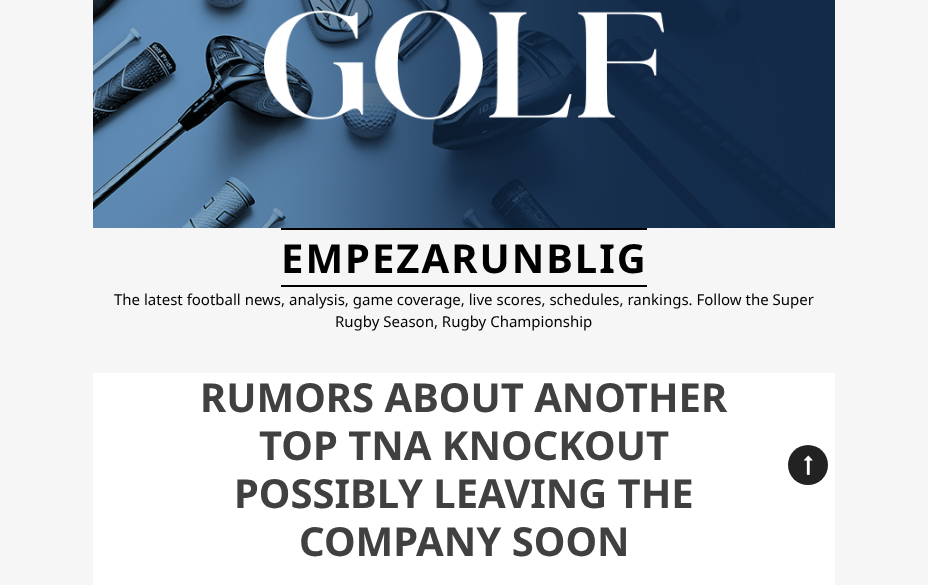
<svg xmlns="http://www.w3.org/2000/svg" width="928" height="585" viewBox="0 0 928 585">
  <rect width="100%" height="100%" fill="#f6f6f6"/>
  <image x="93" y="0" width="742" height="228" href="img/1.png"/>
  <path d="M281 228h366v2H281z" fill="#000"/>
  <path d="M281 285h366v2H281z" fill="#000"/>
  <path d="M93 373h742v212H93z" fill="#fff"/>
  <circle cx="808" cy="465" r="20" fill="#222"/>
  <image x="804" y="455" width="9" height="20" href="img/2.png"/>
  <text x="281" y="273" font-family="Noto Sans" font-size="40" font-weight="bold" letter-spacing="2" fill="#000">EMPEZARUNBLIG</text>
  <g font-family="Noto Sans" font-size="15" fill="#000">
    <text x="114" y="305">The latest football news, analysis, game coverage, live scores, schedules, rankings. Follow the Super</text>
    <text x="335" y="327">Rugby Season, Rugby Championship</text>
  </g>
  <g font-family="Noto Sans" font-size="40" font-weight="bold" fill="#404040">
    <text x="200" y="412">RUMORS ABOUT ANOTHER</text>
    <text x="259" y="460">TOP TNA KNOCKOUT</text>
    <text x="234" y="508">POSSIBLY LEAVING THE</text>
    <text x="299" y="556">COMPANY SOON</text>
  </g>
</svg>
